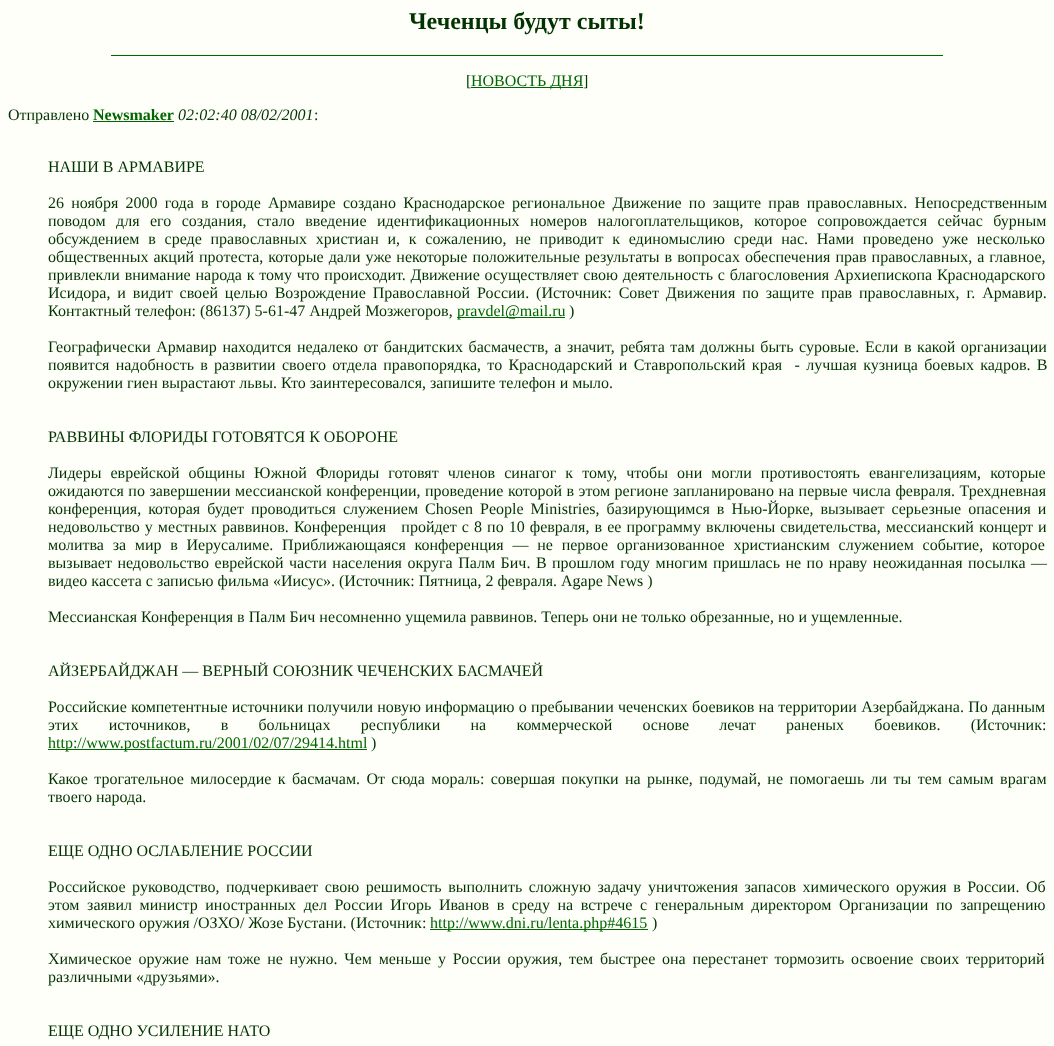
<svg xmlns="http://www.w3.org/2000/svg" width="1054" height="1046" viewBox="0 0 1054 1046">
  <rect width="100%" height="100%" fill="#fffff9"/>
  <path d="M111 55h832v1H111z" fill="#060"/>
  <path d="M471 87h112v1H471z" fill="#060"/>
  <path d="M93 121h81v1H93z" fill="#060"/>
  <path d="M457 317h108v1H457z" fill="#060"/>
  <path d="M48 749h319v1H48z" fill="#060"/>
  <path d="M430 929h218v1H430z" fill="#060"/>
  <text x="409" y="29" font-family="Liberation Serif" font-size="24" font-weight="bold" fill="#030">Чеченцы будут сыты!</text>
  <text x="466" y="86" font-family="Liberation Serif" font-size="16" fill="#030">[</text>
  <text x="471" y="86" font-family="Liberation Serif" font-size="16" fill="#060">НОВОСТЬ ДНЯ</text>
  <g font-family="Liberation Serif" font-size="16" fill="#030">
    <text x="583" y="86">]</text>
    <text x="8" y="120">Отправлено</text>
  </g>
  <text x="93" y="120" font-family="Liberation Serif" font-size="16" font-weight="bold" fill="#060">Newsmaker</text>
  <text x="178" y="120" font-family="Liberation Serif" font-size="16" font-style="italic" fill="#030">02:02:40 08/02/2001</text>
  <g font-family="Liberation Serif" font-size="16" fill="#030">
    <text x="314" y="120">:</text>
    <text x="48" y="172">НАШИ В АРМАВИРЕ</text>
    <text x="48" y="208" word-spacing="3.25">26 ноября 2000 года в городе Армавире создано Краснодарское региональное Движение по защите прав православных. Непосредственным</text>
    <text x="48" y="226" word-spacing="6.5">поводом для его создания, стало введение идентификационных номеров налогоплательщиков, которое сопровождается сейчас бурным</text>
    <text x="48" y="244" word-spacing="4.75">обсуждением в среде православных христиан и, к сожалению, не приводит к единомыслию среди нас. Нами проведено уже несколько</text>
    <text x="48" y="262" word-spacing="1">общественных акций протеста, которые дали уже некоторые положительные результаты в вопросах обеспечения прав православных, а главное,</text>
    <text x="48" y="280" word-spacing="0.8">привлекли внимание народа к тому что происходит. Движение осуществляет свою деятельность с благословения Архиепископа Краснодарского</text>
    <text x="48" y="298" word-spacing="2.9">Исидора, и видит своей целью Возрождение Православной России. (Источник: Совет Движения по защите прав православных, г. Армавир.</text>
    <text x="48" y="316">Контактный телефон: (86137) 5-61-47 Андрей Мозжегоров,</text>
  </g>
  <text x="457" y="316" font-family="Liberation Serif" font-size="16" fill="#060">pravdel@mail.ru</text>
  <g font-family="Liberation Serif" font-size="16" fill="#030">
    <text x="569" y="316">)</text>
    <text x="48" y="352" word-spacing="1.6">Географически Армавир находится недалеко от бандитских басмачеств, а значит, ребята там должны быть суровые. Если в какой организации</text>
    <text x="48" y="370" word-spacing="2.25" xml:space="preserve">появится надобность в развитии своего отдела правопорядка, то Краснодарский и Ставропольский края  - лучшая кузница боевых кадров. В</text>
    <text x="48" y="388">окружении гиен вырастают львы. Кто заинтересовался, запишите телефон и мыло.</text>
    <text x="48" y="442">РАВВИНЫ ФЛОРИДЫ ГОТОВЯТСЯ К ОБОРОНЕ</text>
    <text x="48" y="478" word-spacing="5.1">Лидеры еврейской общины Южной Флориды готовят членов синагог к тому, чтобы они могли противостоять евангелизациям, которые</text>
    <text x="48" y="496" word-spacing="0.5">ожидаются по завершении мессианской конференции, проведение которой в этом регионе запланировано на первые числа февраля. Трехдневная</text>
    <text x="48" y="514" word-spacing="3">конференция, которая будет проводиться служением Chosen People Ministries, базирующимся в Нью-Йорке, вызывает серьезные опасения и</text>
    <text x="48" y="532" word-spacing="1.1" xml:space="preserve">недовольство у местных раввинов. Конференция   пройдет с 8 по 10 февраля, в ее программу включены свидетельства, мессианский концерт и</text>
    <text x="48" y="550" word-spacing="4.75">молитва за мир в Иерусалиме. Приближающаяся конференция — не первое организованное христианским служением событие, которое</text>
    <text x="48" y="568" word-spacing="1.5">вызывает недовольство еврейской части населения округа Палм Бич. В прошлом году многим пришлась не по нраву неожиданная посылка —</text>
    <text x="48" y="586">видео кассета с записью фильма «Иисус». (Источник: Пятница, 2 февраля. Agape News )</text>
    <text x="48" y="622">Мессианская Конференция в Палм Бич несомненно ущемила раввинов. Теперь они не только обрезанные, но и ущемленные.</text>
    <text x="48" y="676">АЙЗЕРБАЙДЖАН — ВЕРНЫЙ СОЮЗНИК ЧЕЧЕНСКИХ БАСМАЧЕЙ</text>
    <text x="48" y="712" word-spacing="0.25">Российские компетентные источники получили новую информацию о пребывании чеченских боевиков на территории Азербайджана. По данным</text>
    <text x="48" y="730" word-spacing="26.25">этих источников, в больницах республики на коммерческой основе лечат раненых боевиков. (Источник:</text>
  </g>
  <text x="48" y="748" font-family="Liberation Serif" font-size="16" fill="#060">http://www.postfactum.ru/2001/02/07/29414.html</text>
  <g font-family="Liberation Serif" font-size="16" fill="#030">
    <text x="371" y="748">)</text>
    <text x="48" y="784" word-spacing="2.4">Какое трогательное милосердие к басмачам. От сюда мораль: совершая покупки на рынке, подумай, не помогаешь ли ты тем самым врагам</text>
    <text x="48" y="802">твоего народа.</text>
    <text x="48" y="856">ЕЩЕ ОДНО ОСЛАБЛЕНИЕ РОССИИ</text>
    <text x="48" y="892" word-spacing="2.5">Российское руководство, подчеркивает свою решимость выполнить сложную задачу уничтожения запасов химического оружия в России. Об</text>
    <text x="48" y="910" word-spacing="3.6">этом заявил министр иностранных дел России Игорь Иванов в среду на встрече с генеральным директором Организации по запрещению</text>
    <text x="48" y="928">химического оружия /ОЗХО/ Жозе Бустани. (Источник:</text>
  </g>
  <text x="430" y="928" font-family="Liberation Serif" font-size="16" fill="#060">http://www.dni.ru/lenta.php#4615</text>
  <g font-family="Liberation Serif" font-size="16" fill="#030">
    <text x="652" y="928">)</text>
    <text x="48" y="964" word-spacing="2.75">Химическое оружие нам тоже не нужно. Чем меньше у России оружия, тем быстрее она перестанет тормозить освоение своих территорий</text>
    <text x="48" y="982">различными «друзьями».</text>
    <text x="48" y="1036">ЕЩЕ ОДНО УСИЛЕНИЕ НАТО</text>
  </g>
</svg>
